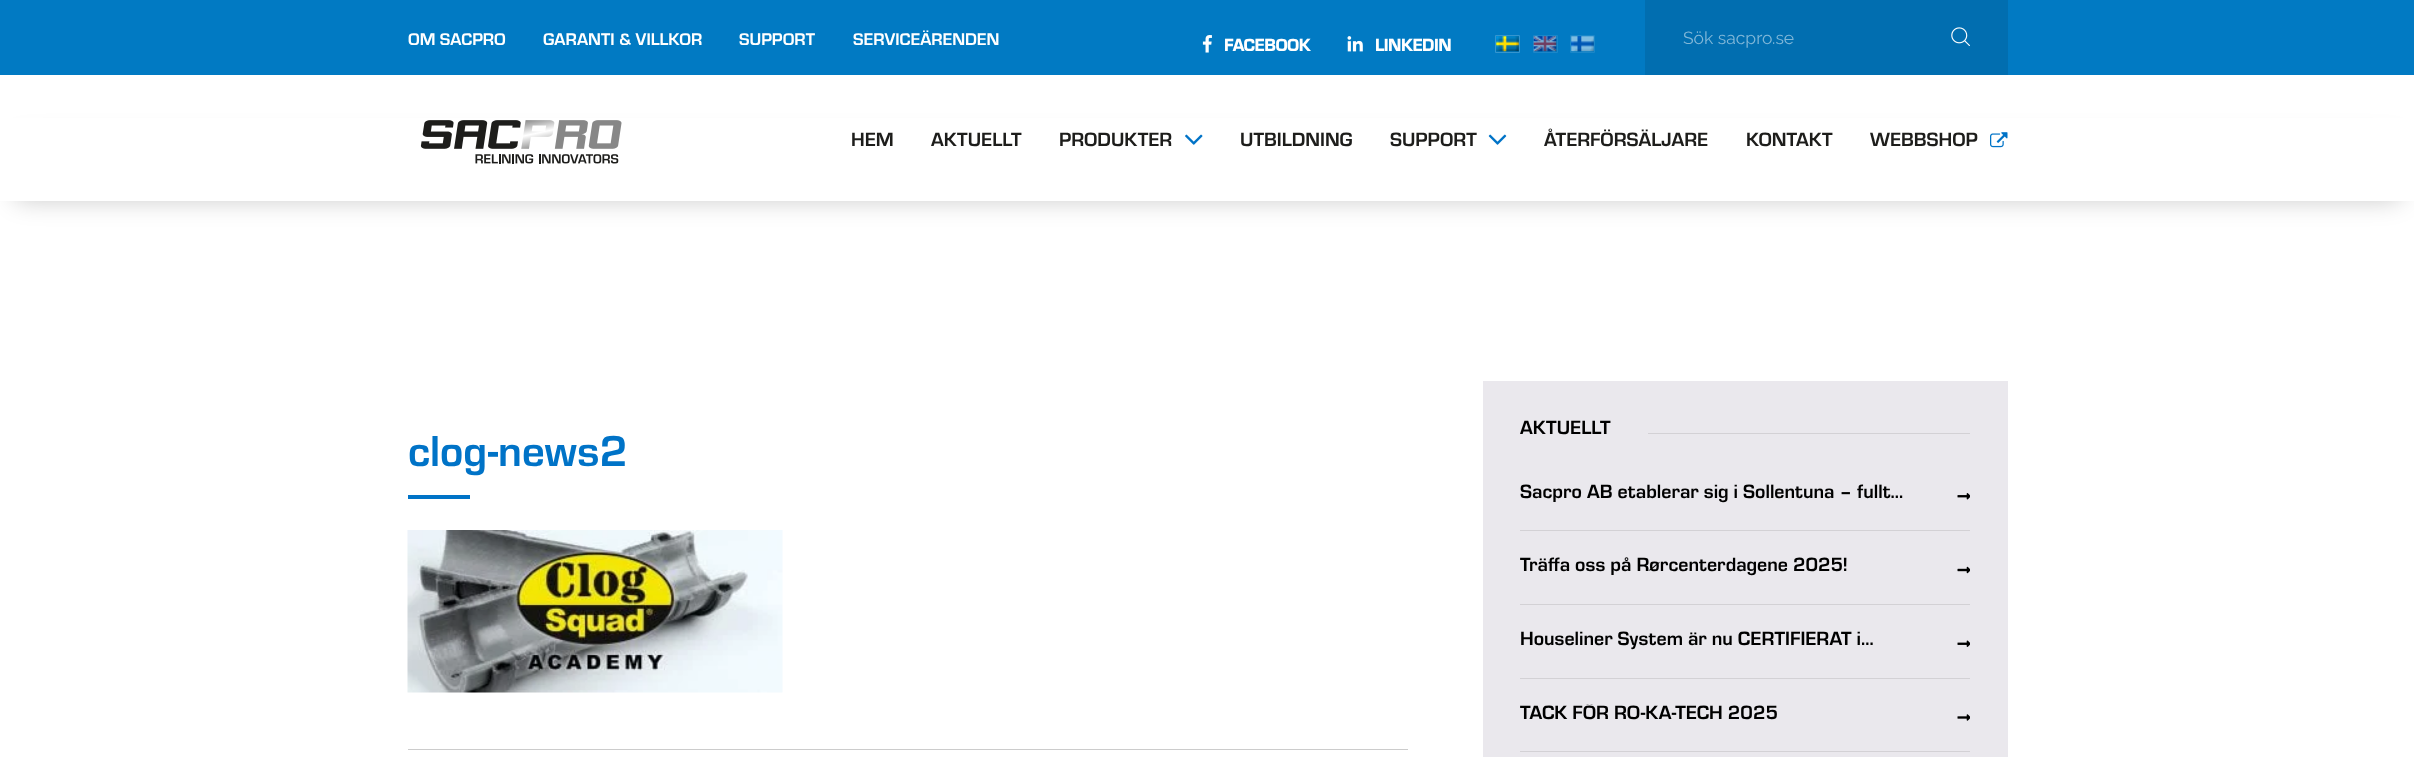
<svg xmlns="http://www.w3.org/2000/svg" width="2414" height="757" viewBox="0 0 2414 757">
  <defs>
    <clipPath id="clip1"><path d="M1520 704h413v20H1520z"/></clipPath>
  </defs>
  <rect width="100%" height="100%" fill="#fff"/>
  <path d="M0 0h2414v75H0z" fill="#017ac3"/>
  <image x="1202" y="35" width="10" height="18" href="img/1.png"/>
  <image x="1347" y="36" width="16" height="16" href="img/2.png"/>
  <path d="M1495.5 35.5h24v17H1495.5z" fill="none" stroke="#3495cf"/>
  <image x="1496" y="36" width="23" height="16" href="img/3.png"/>
  <path d="M1533.5 35.5h24v17H1533.5z" fill="none" stroke="#1a87c9"/>
  <image x="1533" y="36" width="24" height="16" href="img/4.png"/>
  <path d="M1570.5 35.5h24v17H1570.5z" fill="none" stroke="#1a87c9"/>
  <image x="1571" y="36" width="23" height="16" href="img/5.png"/>
  <path d="M1645 0h363v75H1645z" fill="#016eb0"/>
  <image x="1951" y="27" width="19" height="19" href="img/6.png"/>
  <rect x="13" y="139" width="2390" height="62" rx="13" fill="#00000033" filter="blur(12.5px)"/>
  <path d="M0 118h2414v83H0z" fill="#fff"/>
  <image x="420" y="120" width="202" height="44" href="img/7.png"/>
  <image x="1185" y="134" width="18" height="11" href="img/8.png"/>
  <image x="1488" y="134" width="19" height="11" href="img/9.png"/>
  <image x="1990" y="132" width="18" height="16" href="img/10.png"/>
  <path d="M408 495h62v4H408z" fill="#0073c7"/>
  <image x="407" y="530" width="376" height="163" href="img/11.png"/>
  <path d="M408 749h1000v1H408z" fill="#ccc"/>
  <path d="M1483 381h525v376H1483z" fill="#eae8ed"/>
  <path d="M1648 433h322v1H1648z" fill="#d3d1d5"/>
  <image x="1957" y="493" width="13" height="7" href="img/12.png"/>
  <path d="M1520 530h450v1H1520z" fill="#d3d1d5"/>
  <image x="1957" y="566" width="13" height="8" href="img/13.png"/>
  <path d="M1520 604h450v1H1520z" fill="#d3d1d5"/>
  <image x="1957" y="640" width="13" height="7" href="img/14.png"/>
  <path d="M1520 678h450v1H1520z" fill="#d3d1d5"/>
  <image x="1957" y="714" width="13" height="7" href="img/15.png"/>
  <path d="M1520 751h450v1H1520z" fill="#d3d1d5"/>
  <g font-family="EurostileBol" font-size="17.5" fill="#fff">
    <text x="408" y="45">OM SACPRO</text>
    <text x="543" y="45">GARANTI &amp; VILLKOR</text>
    <text x="739" y="45">SUPPORT</text>
    <text x="853" y="45">SERVICEÄRENDEN</text>
  </g>
  <g font-family="EurostileBol" font-size="17.5" font-weight="bold" fill="#fff">
    <text x="1224" y="51">FACEBOOK</text>
    <text x="1375" y="51">LINKEDIN</text>
  </g>
  <text x="1683" y="44" font-family="Raleway" font-size="17.5" fill="#80b7d8">Sök sacpro.se</text>
  <g font-family="EurostileBol" font-size="20" fill="#1d1d1b">
    <text x="851" y="146">HEM</text>
    <text x="931" y="146">AKTUELLT</text>
    <text x="1059" y="146">PRODUKTER</text>
    <text x="1240" y="146">UTBILDNING</text>
    <text x="1390" y="146">SUPPORT</text>
    <text x="1544" y="146">ÅTERFÖRSÄLJARE</text>
    <text x="1746" y="146">KONTAKT</text>
    <text x="1870" y="146">WEBBSHOP</text>
  </g>
  <text x="408" y="466" font-family="EurostileBol" font-size="45" fill="#0073c7">clog-news2</text>
  <g font-family="EurostileBol" font-size="20" fill="#000">
    <text x="1520" y="434">AKTUELLT</text>
    <text x="1520" y="498">Sacpro AB etablerar sig i Sollentuna – fullt…</text>
    <text x="1520" y="571">Träffa oss på Rørcenterdagene 2025!</text>
    <text x="1520" y="645">Houseliner System är nu CERTIFIERAT i…</text>
  </g>
  <g clip-path="url(#clip1)">
    <text x="1520" y="719" font-family="EurostileBol" font-size="20" fill="#000">TACK FÖR RO-KA-TECH 2025</text>
  </g>
</svg>
